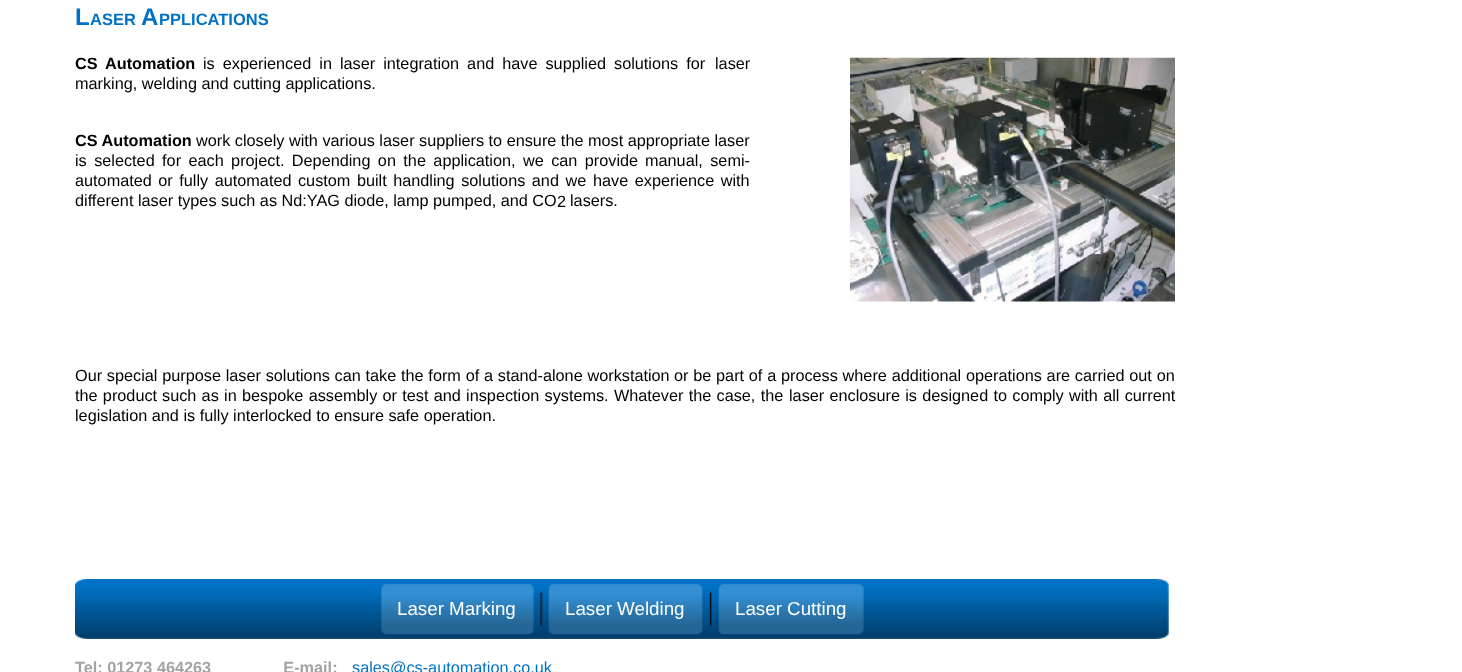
<svg xmlns="http://www.w3.org/2000/svg" width="1462" height="672" viewBox="0 0 1462 672">
  <rect width="100%" height="100%" fill="#fff"/>
  <image x="850" y="57" width="325" height="245" href="img/1.png"/>
  <image x="75" y="579" width="1094" height="60" href="img/2.png"/>
  <image x="381" y="584" width="153" height="51" href="img/3.png"/>
  <image x="548" y="584" width="155" height="51" href="img/4.png"/>
  <image x="718" y="584" width="146" height="51" href="img/5.png"/>
  <text x="75" y="25" font-family="Liberation Sans" font-size="24" font-weight="bold" fill="#0072c5">L</text>
  <text x="90" y="25" font-family="Liberation Sans" font-size="16.5" font-weight="bold" fill="#0072c5">ASER</text>
  <text x="141" y="25" font-family="Liberation Sans" font-size="24" font-weight="bold" fill="#0072c5">A</text>
  <text x="159" y="25" font-family="Liberation Sans" font-size="16.5" font-weight="bold" fill="#0072c5">PPLICATIONS</text>
  <text x="75" y="69" word-spacing="3.5" font-family="Liberation Sans" font-size="16.25" font-weight="bold" fill="#000">CS Automation</text>
  <g font-family="Liberation Sans" font-size="16.25" fill="#000">
    <text x="203" y="69" word-spacing="3.5">is experienced in laser integration and have supplied solutions for</text>
    <text x="715" y="69">laser</text>
    <text x="75" y="89">marking, welding and cutting applications.</text>
  </g>
  <text x="75" y="146" font-family="Liberation Sans" font-size="16.25" font-weight="bold" fill="#000">CS Automation</text>
  <g font-family="Liberation Sans" font-size="16.25" fill="#000">
    <text x="196" y="146">work closely with various laser suppliers to ensure the most appropriate laser</text>
    <text x="75" y="166" word-spacing="2.9">is selected for each project. Depending on the application, we can provide</text>
    <text x="645" y="166" word-spacing="2.9">manual, semi-</text>
    <text x="75" y="186" word-spacing="2">automated or fully automated custom built handling solutions and we</text>
    <text x="593" y="186" word-spacing="2">have experience with</text>
    <text x="75" y="206">different laser types such as Nd:YAG diode, lamp pumped, and CO</text>
    <text x="557" y="207">2</text>
    <text x="570" y="206">lasers.</text>
    <text x="75" y="381" word-spacing="0.25">Our special purpose laser solutions can take the form of a stand-alone workstation</text>
    <text x="674" y="381" word-spacing="0.25">or be part of a process where additional operations are carried out on</text>
    <text x="75" y="401" word-spacing="0.75">the product</text>
    <text x="162" y="401" word-spacing="0.75">such as in bespoke assembly or test and inspection systems. Whatever the case, the</text>
    <text x="789" y="401" word-spacing="0.75">laser enclosure is designed to comply with all current</text>
    <text x="75" y="421">legislation and is fully interlocked to ensure safe operation.</text>
  </g>
  <g font-family="Liberation Sans" font-size="18.75" fill="#fff">
    <text x="397" y="615">Laser Marking</text>
    <text x="565" y="615">Laser Welding</text>
    <text x="735" y="615">Laser Cutting</text>
  </g>
  <text x="75" y="673" font-family="Liberation Sans" font-size="16.25" font-weight="bold" fill="#a3a3a3" xml:space="preserve">Tel: 01273 464263                E-mail:</text>
  <text x="352" y="673" font-family="Liberation Sans" font-size="16.25" fill="#0072c5">sales@cs-automation.co.uk</text>
</svg>
